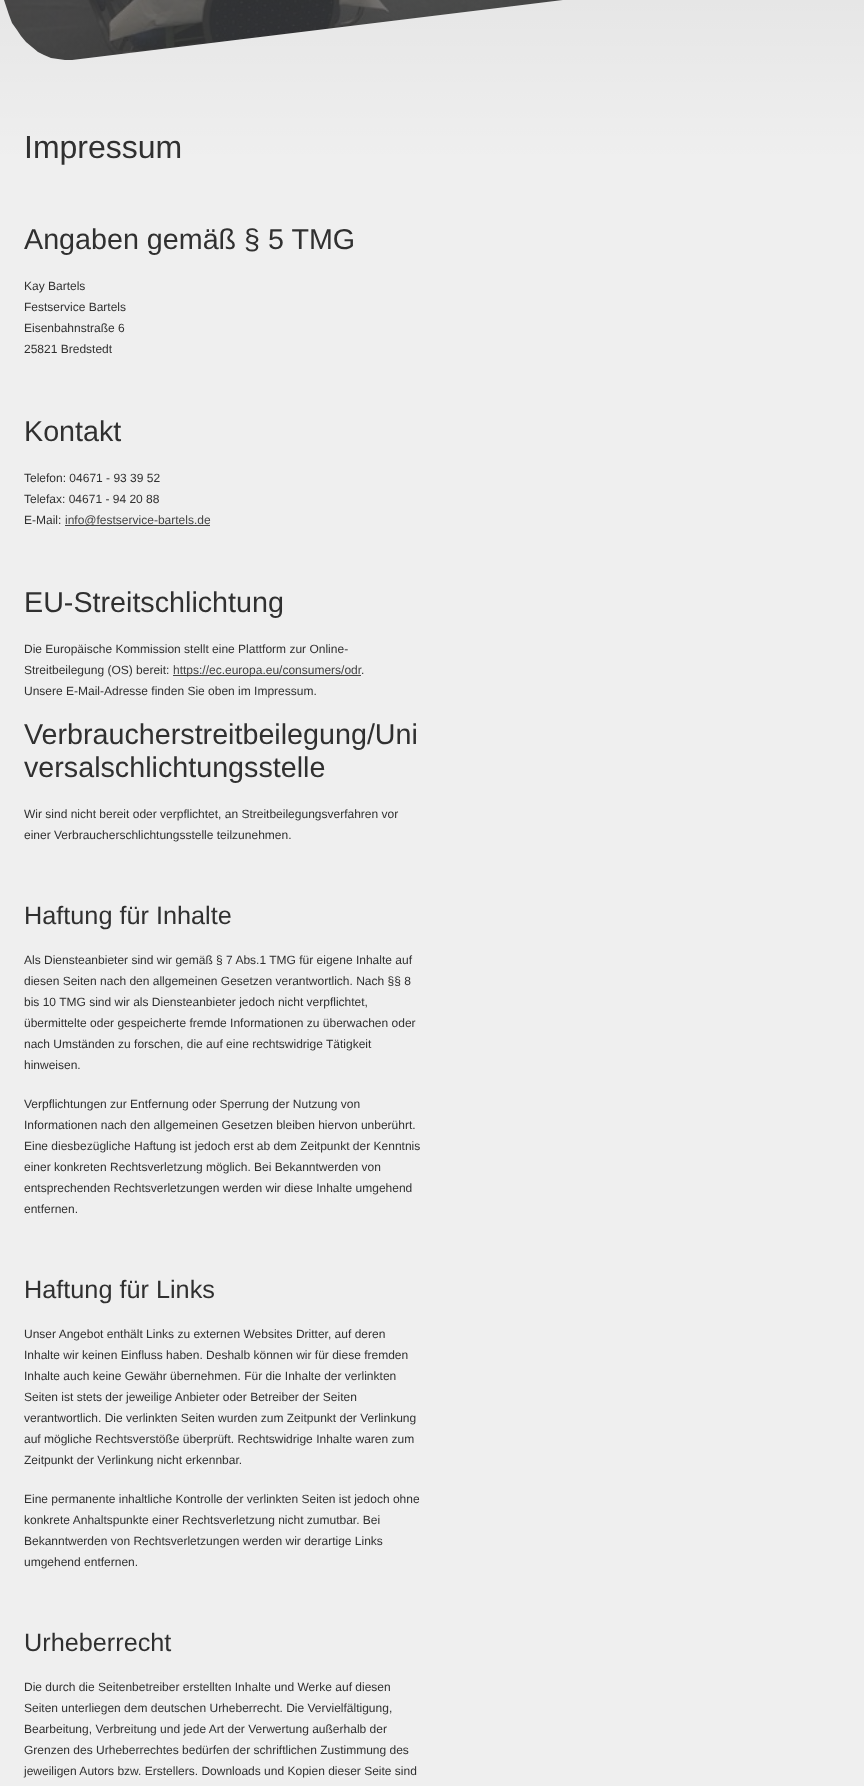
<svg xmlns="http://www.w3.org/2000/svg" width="864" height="1786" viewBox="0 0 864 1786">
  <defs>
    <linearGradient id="g1" gradientUnits="userSpaceOnUse" x1="432" y1="-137" x2="432" y2="163"><stop offset="0" stop-color="#000" stop-opacity="0.07"/><stop offset="1" stop-color="#000" stop-opacity="0"/></linearGradient>
  </defs>
  <rect width="100%" height="100%" fill="#fff"/>
  <image x="4" y="0" width="559" height="60" href="img/1.png"/>
  <path d="M864 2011V-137V-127L863-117L861-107L855-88L852-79L847-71L838-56L826-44L820-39L813-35L806-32L799-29L792-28L72 60H65L58 59L51 58L44 55L38 52L32 47L26 42L21 36L17 30L12 23L9 15L6 6L3-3L1-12L0-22V-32V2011Z" fill="#efefef"/>
  <path d="M0 163H864V-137V-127L863-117L861-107L855-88L852-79L847-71L838-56L826-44L820-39L813-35L806-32L799-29L792-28L72 60H65L58 59L51 58L44 55L38 52L32 47L26 42L21 36L17 30L12 23L9 15L6 6L3-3L1-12L0-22V-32Z" fill="url(#g1)"/>
  <path d="M65 525h145v1H65z" fill="#444"/>
  <path d="M173 675h188v1H173z" fill="#444"/>
  <text x="24" y="158" font-family="Liberation Sans" font-size="32" fill="#303030">Impressum</text>
  <text x="24" y="249" font-family="Liberation Sans" font-size="28.7" fill="#303030">Angaben gemäß § 5 TMG</text>
  <g font-family="Liberation Sans" font-size="12" fill="#303030">
    <text x="24" y="290">Kay Bartels</text>
    <text x="24" y="311">Festservice Bartels</text>
    <text x="24" y="332">Eisenbahnstraße 6</text>
    <text x="24" y="353">25821 Bredstedt</text>
  </g>
  <text x="24" y="441" font-family="Liberation Sans" font-size="28.7" fill="#303030">Kontakt</text>
  <g font-family="Liberation Sans" font-size="12" fill="#303030">
    <text x="24" y="482">Telefon: 04671 - 93 39 52</text>
    <text x="24" y="503">Telefax: 04671 - 94 20 88</text>
    <text x="24" y="524">E-Mail:</text>
  </g>
  <text x="65" y="524" font-family="Liberation Sans" font-size="12" fill="#444">info@festservice-bartels.de</text>
  <text x="24" y="612" font-family="Liberation Sans" font-size="28.7" fill="#303030">EU-Streitschlichtung</text>
  <g font-family="Liberation Sans" font-size="12" fill="#303030">
    <text x="24" y="653">Die Europäische Kommission stellt eine Plattform zur Online-</text>
    <text x="24" y="674">Streitbeilegung (OS) bereit:</text>
  </g>
  <text x="173" y="674" font-family="Liberation Sans" font-size="12" fill="#444">https://ec.europa.eu/consumers/odr</text>
  <g font-family="Liberation Sans" font-size="12" fill="#303030">
    <text x="361" y="674">.</text>
    <text x="24" y="695">Unsere E-Mail-Adresse finden Sie oben im Impressum.</text>
  </g>
  <g font-family="Liberation Sans" font-size="28.7" fill="#303030">
    <text x="24" y="744">Verbraucherstreitbeilegung/Uni</text>
    <text x="24" y="777">versalschlichtungsstelle</text>
  </g>
  <g font-family="Liberation Sans" font-size="12" fill="#303030">
    <text x="24" y="818">Wir sind nicht bereit oder verpflichtet, an Streitbeilegungsverfahren vor</text>
    <text x="24" y="839">einer Verbraucherschlichtungsstelle teilzunehmen.</text>
  </g>
  <text x="24" y="924" font-family="Liberation Sans" font-size="25.25" fill="#303030">Haftung für Inhalte</text>
  <g font-family="Liberation Sans" font-size="12" fill="#303030">
    <text x="24" y="964">Als Diensteanbieter sind wir gemäß § 7 Abs.1 TMG für eigene Inhalte auf</text>
    <text x="24" y="985">diesen Seiten nach den allgemeinen Gesetzen verantwortlich. Nach §§ 8</text>
    <text x="24" y="1006">bis 10 TMG sind wir als Diensteanbieter jedoch nicht verpflichtet,</text>
    <text x="24" y="1027">übermittelte oder gespeicherte fremde Informationen zu überwachen oder</text>
    <text x="24" y="1048">nach Umständen zu forschen, die auf eine rechtswidrige Tätigkeit</text>
    <text x="24" y="1069">hinweisen.</text>
    <text x="24" y="1108">Verpflichtungen zur Entfernung oder Sperrung der Nutzung von</text>
    <text x="24" y="1129">Informationen nach den allgemeinen Gesetzen bleiben hiervon unberührt.</text>
    <text x="24" y="1150">Eine diesbezügliche Haftung ist jedoch erst ab dem Zeitpunkt der Kenntnis</text>
    <text x="24" y="1171">einer konkreten Rechtsverletzung möglich. Bei Bekanntwerden von</text>
    <text x="24" y="1192">entsprechenden Rechtsverletzungen werden wir diese Inhalte umgehend</text>
    <text x="24" y="1213">entfernen.</text>
  </g>
  <text x="24" y="1298" font-family="Liberation Sans" font-size="25.25" fill="#303030">Haftung für Links</text>
  <g font-family="Liberation Sans" font-size="12" fill="#303030">
    <text x="24" y="1338">Unser Angebot enthält Links zu externen Websites Dritter, auf deren</text>
    <text x="24" y="1359">Inhalte wir keinen Einfluss haben. Deshalb können wir für diese fremden</text>
    <text x="24" y="1380">Inhalte auch keine Gewähr übernehmen. Für die Inhalte der verlinkten</text>
    <text x="24" y="1401">Seiten ist stets der jeweilige Anbieter oder Betreiber der Seiten</text>
    <text x="24" y="1422">verantwortlich. Die verlinkten Seiten wurden zum Zeitpunkt der Verlinkung</text>
    <text x="24" y="1443">auf mögliche Rechtsverstöße überprüft. Rechtswidrige Inhalte waren zum</text>
    <text x="24" y="1464">Zeitpunkt der Verlinkung nicht erkennbar.</text>
    <text x="24" y="1503">Eine permanente inhaltliche Kontrolle der verlinkten Seiten ist jedoch ohne</text>
    <text x="24" y="1524">konkrete Anhaltspunkte einer Rechtsverletzung nicht zumutbar. Bei</text>
    <text x="24" y="1545">Bekanntwerden von Rechtsverletzungen werden wir derartige Links</text>
    <text x="24" y="1566">umgehend entfernen.</text>
  </g>
  <text x="24" y="1651" font-family="Liberation Sans" font-size="25.25" fill="#303030">Urheberrecht</text>
  <g font-family="Liberation Sans" font-size="12" fill="#303030">
    <text x="24" y="1691">Die durch die Seitenbetreiber erstellten Inhalte und Werke auf diesen</text>
    <text x="24" y="1712">Seiten unterliegen dem deutschen Urheberrecht. Die Vervielfältigung,</text>
    <text x="24" y="1733">Bearbeitung, Verbreitung und jede Art der Verwertung außerhalb der</text>
    <text x="24" y="1754">Grenzen des Urheberrechtes bedürfen der schriftlichen Zustimmung des</text>
    <text x="24" y="1775">jeweiligen Autors bzw. Erstellers. Downloads und Kopien dieser Seite sind</text>
  </g>
</svg>
